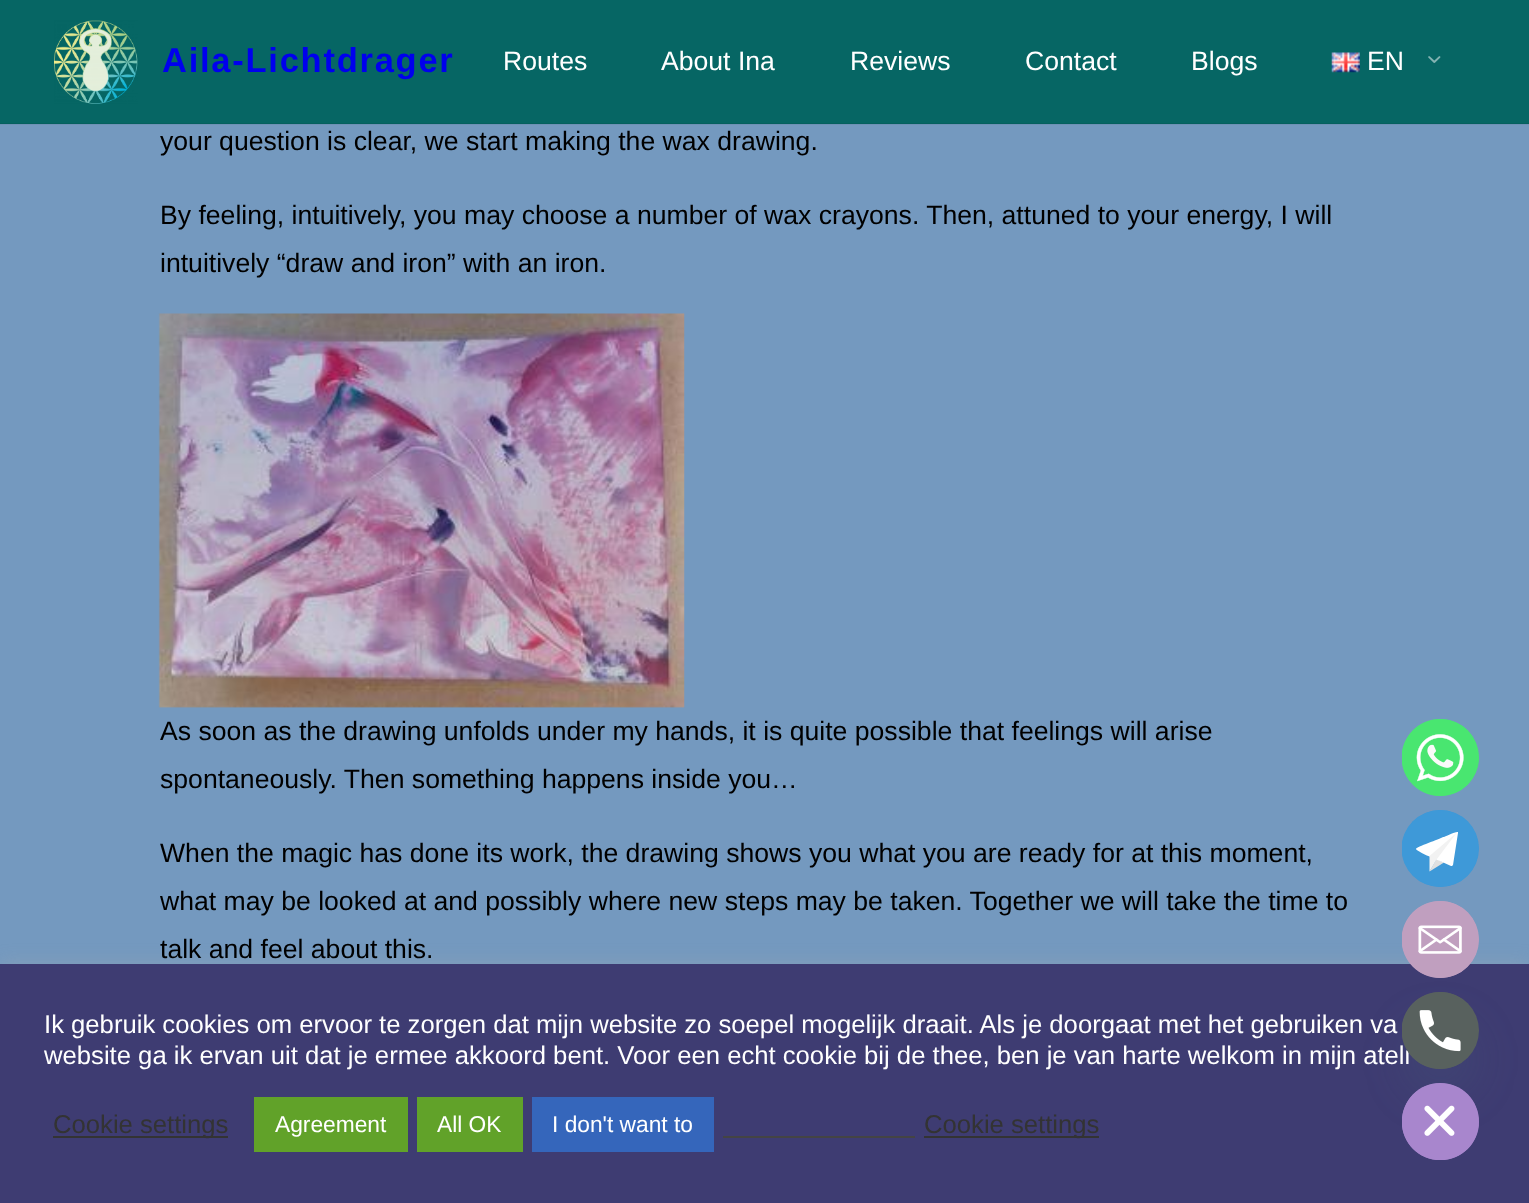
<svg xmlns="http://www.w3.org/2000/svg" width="1529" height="1203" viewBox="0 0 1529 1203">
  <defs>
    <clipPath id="clip1"><path d="M1402 810h77v77H1402z"/></clipPath>
  </defs>
  <rect width="100%" height="100%" fill="#7499bf"/>
  <path d="M0 0h1529v124H0z" fill="#066664"/>
  <path d="M0 123h1529v2H0z" fill="#0000000d"/>
  <image x="54" y="20" width="84" height="84" href="img/1.png"/>
  <image x="1331" y="52" width="29" height="21" href="img/2.png"/>
  <image x="1428" y="56" width="13" height="7" href="img/3.png"/>
  <image x="158" y="313" width="527" height="395" href="img/4.png"/>
  <circle cx="1440.5" cy="757.5" r="38.5" fill="#49e670"/>
  <image x="1402" y="719" width="77" height="77" href="img/5.png"/>
  <circle cx="1440.5" cy="848.5" r="38.5" fill="#3e99d8"/>
  <g clip-path="url(#clip1)">
    <circle cx="1440" cy="848.5" r="38.5" fill="#3e99d8"/>
  </g>
  <path d="M1436.5 859L1429.5 871.5L1444 862.5Z" fill="#e0e0e0"/>
  <path d="M1458 832C1456 831 1445 837 1443 837C1440 839 1416 847 1416 849C1416 851 1437 860 1440 861L1451 866H1452L1453 865L1458 833Z" fill="#fff"/>
  <path d="M1456.5 833L1429.5 856V871.5L1436.5 859.5Z" fill="#f2f2f2"/>
  <path d="M0 963h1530v239H0z" fill="#acabab4d" filter="blur(9px)"/>
  <path d="M0 964h1529v239H0z" fill="#3e3c72"/>
  <circle cx="1440.5" cy="939.5" r="38.5" fill="#c09fbf"/>
  <image x="1402" y="901" width="77" height="77" href="img/6.png"/>
  <rect x="1402" y="1020" width="77" height="77" rx="38.5" fill="#49687e29" filter="blur(21px)"/>
  <path d="M1440 1160C1419 1160 1402 1143 1402 1122C1402 1100 1419 1083 1440 1083C1462 1083 1479 1100 1479 1122C1479 1143 1462 1160 1440 1160Z" fill="#a886cd"/>
  <image x="1402" y="1083" width="77" height="77" href="img/8.png"/>
  <path d="M53 1136h175v2H53z" fill="#333"/>
  <path d="M254 1097h154v55H254z" fill="#61a229"/>
  <path d="M417 1097h106v55H417z" fill="#61a229"/>
  <path d="M532 1097h182v55H532z" fill="#3566bb"/>
  <path d="M723 1136h192v2H723z" fill="#444"/>
  <path d="M924 1136h175v2H924z" fill="#333"/>
  <text x="162" y="72" font-family="Liberation Sans" font-size="34.5" font-weight="bold" letter-spacing="1.75" fill="#00e">Aila-Lichtdrager</text>
  <g font-family="Liberation Sans" font-size="26.6" fill="#fff">
    <text x="503" y="70">Routes</text>
    <text x="661" y="70">About Ina</text>
    <text x="850" y="70">Reviews</text>
    <text x="1025" y="70">Contact</text>
    <text x="1191" y="70">Blogs</text>
    <text x="1367" y="70">EN</text>
  </g>
  <g font-family="Liberation Sans" font-size="26.6" fill="#000">
    <text x="160" y="150">your question is clear, we start making the wax drawing.</text>
    <text x="160" y="224">By feeling, intuitively, you may choose a number of wax crayons. Then, attuned to your energy, I will</text>
    <text x="160" y="272">intuitively “draw and iron” with an iron.</text>
    <text x="160" y="740">As soon as the drawing unfolds under my hands, it is quite possible that feelings will arise</text>
    <text x="160" y="788">spontaneously. Then something happens inside you…</text>
    <text x="160" y="862">When the magic has done its work, the drawing shows you what you are ready for at this moment,</text>
    <text x="160" y="910">what may be looked at and possibly where new steps may be taken. Together we will take the time to</text>
    <text x="160" y="958">talk and feel about this.</text>
  </g>
  <g font-family="Liberation Sans" font-size="25.67" fill="#fff">
    <text x="44" y="1033">Ik gebruik cookies om ervoor te zorgen dat mijn website zo soepel mogelijk draait. Als je doorgaat met het gebruiken va</text>
    <text x="44" y="1064">website ga ik ervan uit dat je ermee akkoord bent. Voor een echt cookie bij de thee, ben je van harte welkom in mijn ateli</text>
  </g>
  <circle cx="1440.5" cy="1030.5" r="38.5" fill="#58615e"/>
  <image x="1402" y="992" width="60" height="77" href="img/7.png"/>
  <text x="53" y="1133" font-family="Liberation Sans" font-size="25.67" fill="#333">Cookie settings</text>
  <g font-family="Liberation Sans" font-size="22.75" fill="#fff">
    <text x="275" y="1132">Agreement</text>
    <text x="437" y="1132">All OK</text>
    <text x="552" y="1132">I don't want to</text>
  </g>
  <text x="924" y="1133" font-family="Liberation Sans" font-size="25.67" fill="#333">Cookie settings</text>
</svg>
